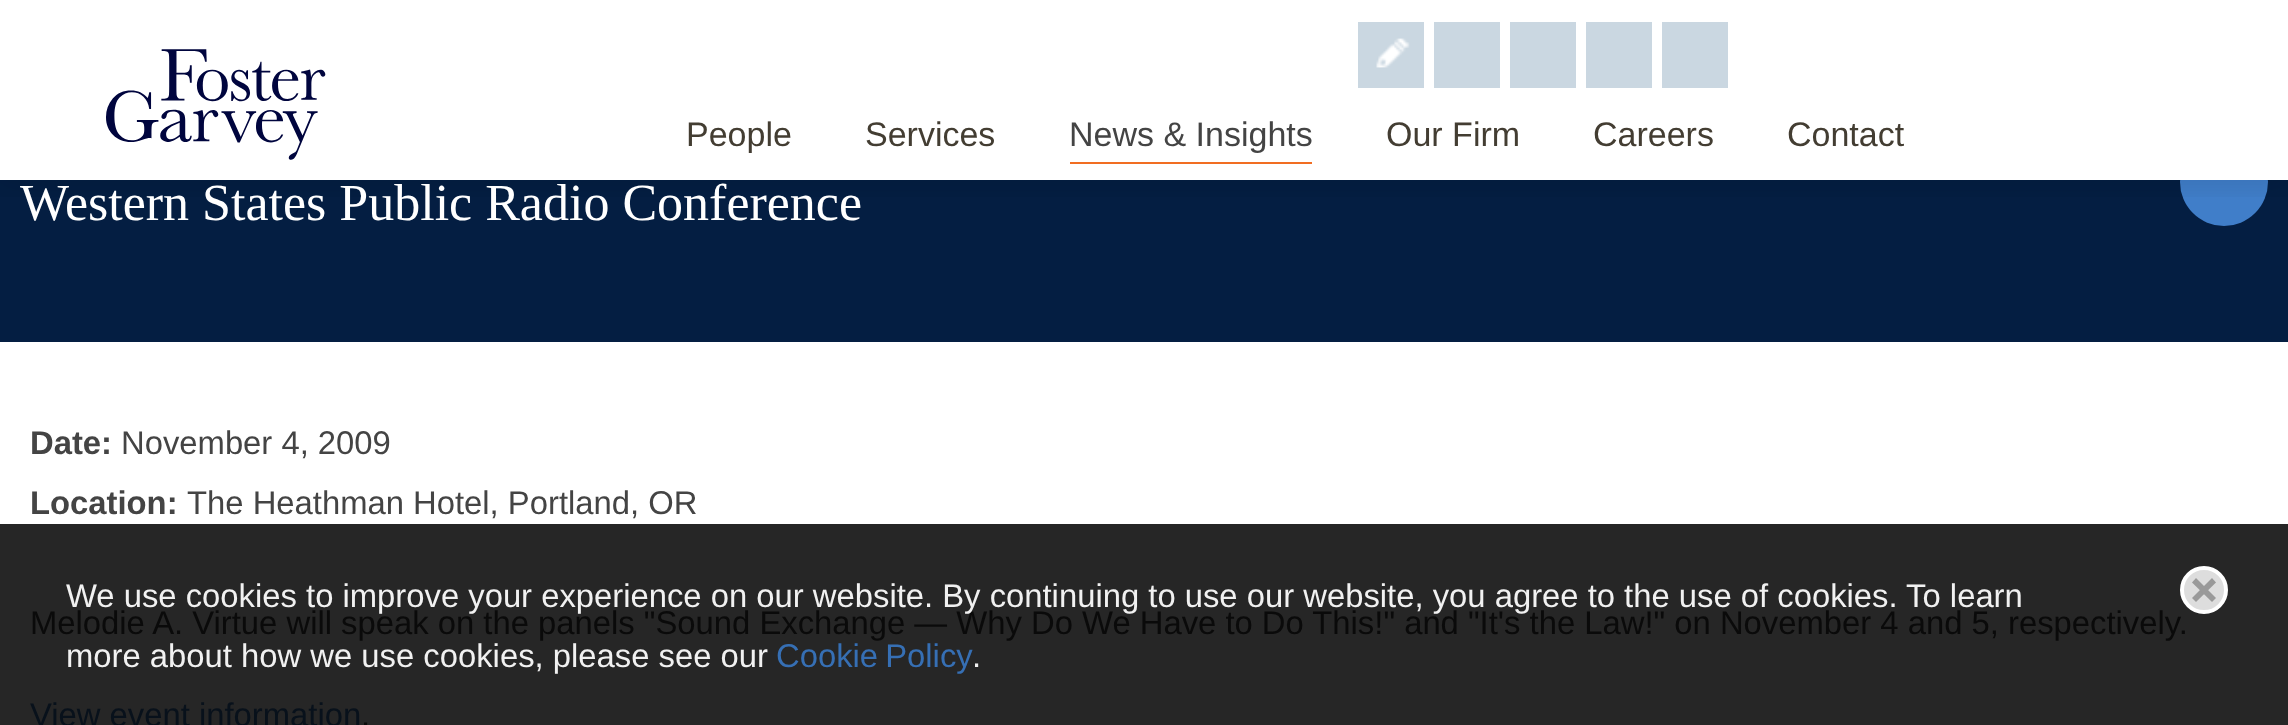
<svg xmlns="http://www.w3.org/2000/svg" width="2288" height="725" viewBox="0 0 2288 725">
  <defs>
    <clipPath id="clip1"><path d="M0 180h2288v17H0z"/></clipPath>
  </defs>
  <rect width="100%" height="100%" fill="#fff"/>
  <path d="M0 524h2288v201H0z" fill="#262626"/>
  <path d="M0 180h2288v162H0z" fill="#041e42"/>
  <circle cx="2224" cy="182" r="44" fill="#407ec9"/>
  <path d="M2180 138h88v42H2180z" fill="#fff"/>
  <g clip-path="url(#clip1)">
    <path d="M-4 -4h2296v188H-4z" fill="#0000001a" filter="blur(15px)"/>
  </g>
  <image x="106" y="49" width="220" height="111" href="img/1.png"/>
  <path d="M1358 22h66v66H1358z" fill="#cad7e1"/>
  <image x="1376" y="38" width="34" height="30" href="img/2.png"/>
  <path d="M1434 22h66v66H1434z" fill="#cad7e1"/>
  <path d="M1510 22h66v66H1510z" fill="#cad7e1"/>
  <path d="M1586 22h66v66H1586z" fill="#cad7e1"/>
  <path d="M1662 22h66v66H1662z" fill="#cad7e1"/>
  <path d="M1070 162h242v2H1070z" fill="#f16d22"/>
  <g font-family="Liberation Sans" font-size="34" fill="#433d32">
    <text x="686" y="146">People</text>
    <text x="865" y="146">Services</text>
  </g>
  <text x="1069" y="146" font-family="Liberation Sans" font-size="34" fill="#444">News &amp; Insights</text>
  <g font-family="Liberation Sans" font-size="34" fill="#433d32">
    <text x="1386" y="146">Our Firm</text>
    <text x="1593" y="146">Careers</text>
    <text x="1787" y="146">Contact</text>
  </g>
  <text x="20" y="220" font-family="Liberation Serif" font-size="52" fill="#fff">Western States Public Radio Conference</text>
  <text x="30" y="454" font-family="Liberation Sans" font-size="32.8" font-weight="bold" fill="#444">Date:</text>
  <text x="121" y="454" font-family="Liberation Sans" font-size="32.8" fill="#444">November 4, 2009</text>
  <text x="30" y="514" font-family="Liberation Sans" font-size="32.8" font-weight="bold" fill="#444">Location:</text>
  <text x="187" y="514" font-family="Liberation Sans" font-size="32.8" fill="#444">The Heathman Hotel, Portland, OR</text>
  <text x="30" y="634" font-family="Liberation Sans" font-size="32.8" fill="#0a0a0a">Melodie A. Virtue will speak on the panels "Sound Exchange — Why Do We Have to Do This!" and "It's the Law!" on November 4 and 5, respectively.</text>
  <text x="30" y="726" font-family="Liberation Sans" font-size="32.8" fill="#08111b">View event information</text>
  <text x="361" y="726" font-family="Liberation Sans" font-size="32.8" fill="#0a0a0a">.</text>
  <g font-family="Liberation Sans" font-size="32.8" fill="#f1f1f1">
    <text x="66" y="607">We use cookies to improve your experience on our website. By continuing to use our website, you agree to the use of cookies. To learn</text>
    <text x="66" y="667">more about how we use cookies, please see our</text>
  </g>
  <text x="776" y="667" word-spacing="-2" font-family="Liberation Sans" font-size="32.8" fill="#366fb4">Cookie Policy</text>
  <text x="972" y="667" font-family="Liberation Sans" font-size="32.8" fill="#f1f1f1">.</text>
  <circle cx="2204" cy="590" r="22" fill="#ddd" stroke="#fff" stroke-width="4"/>
  <path d="M2192 598L2212 578L2216 582.5L2196 602Z" fill="#999"/>
  <path d="M2196 578L2216 598L2212 602L2192 582.5Z" fill="#999"/>
</svg>
